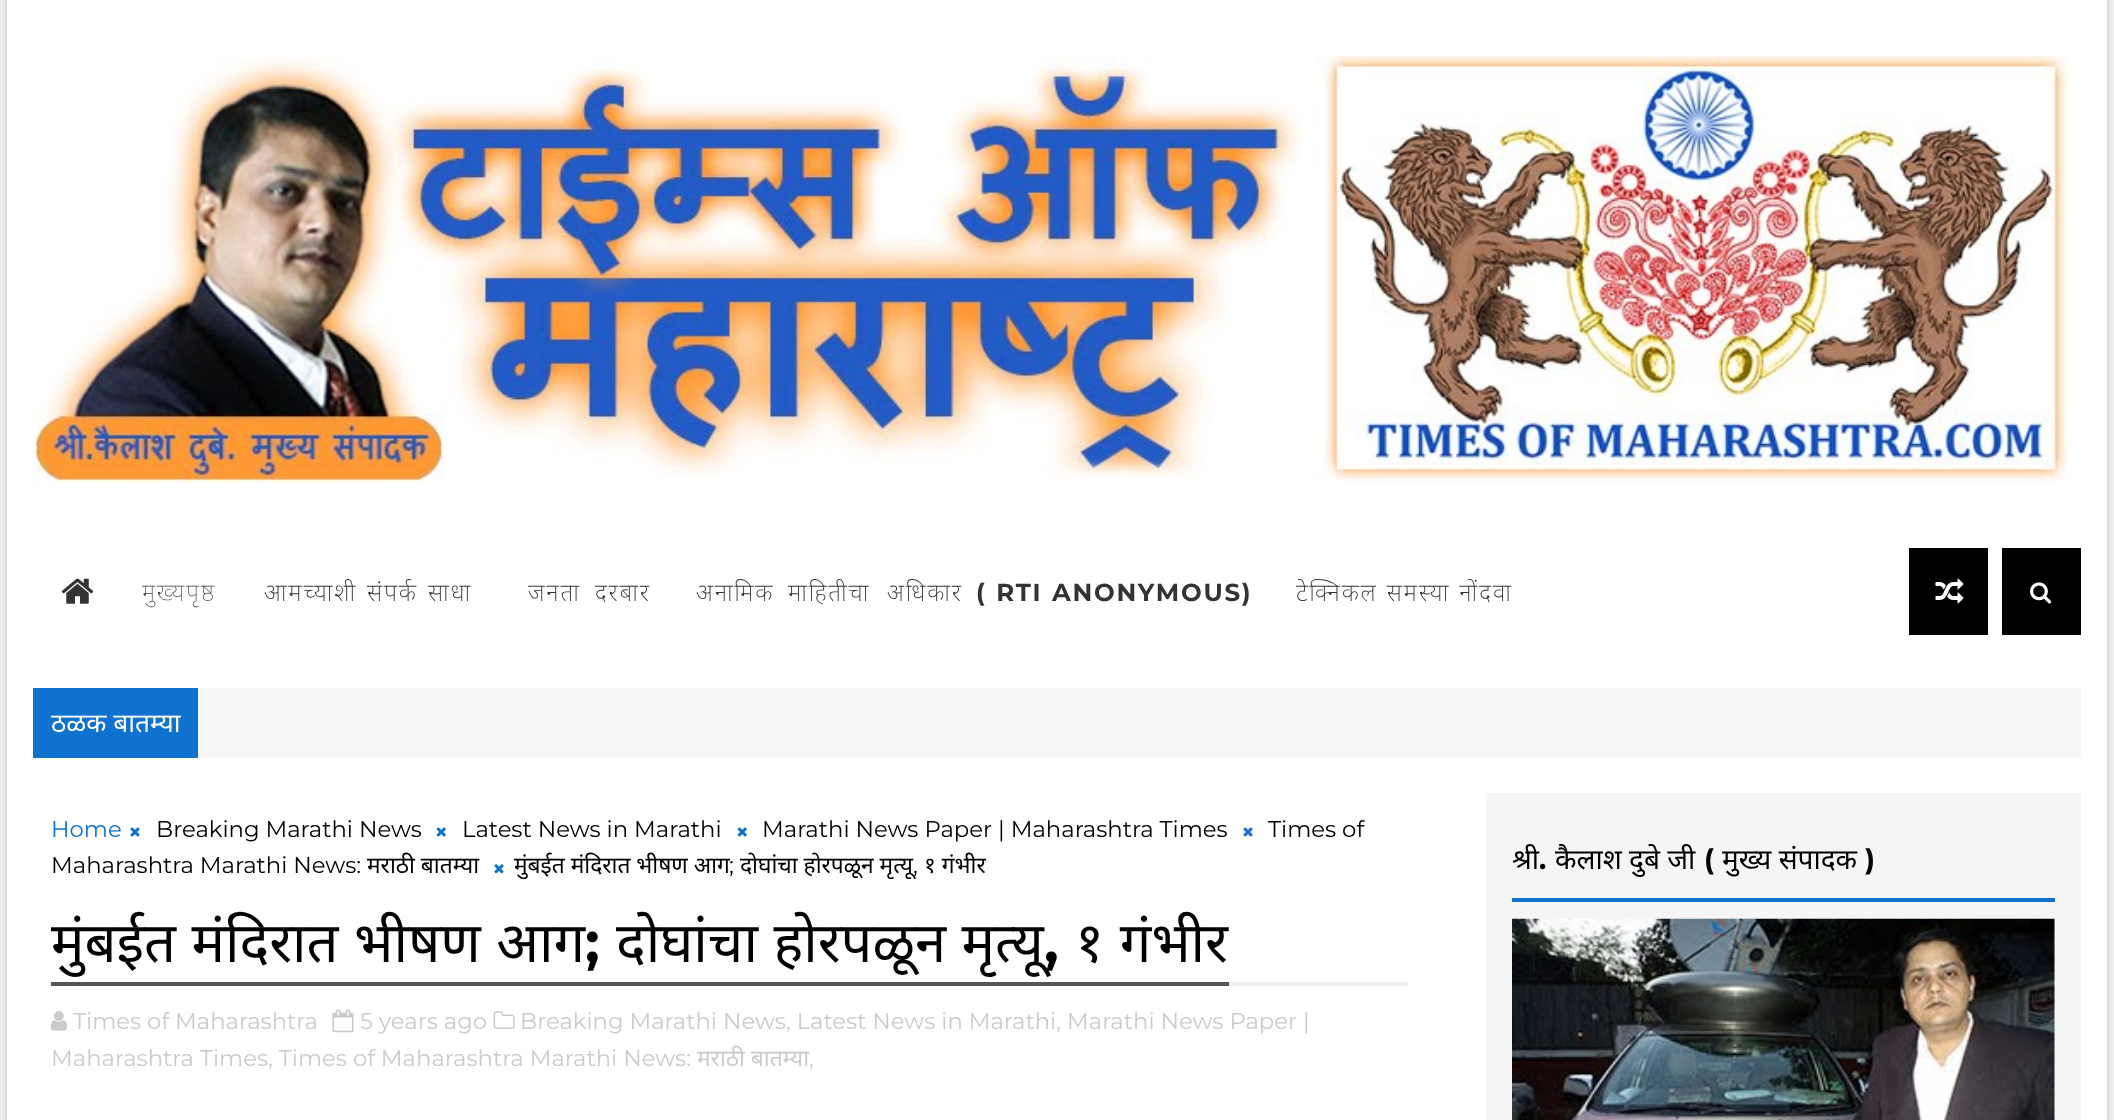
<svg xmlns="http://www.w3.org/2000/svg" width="2114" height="1120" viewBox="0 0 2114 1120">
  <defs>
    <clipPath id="clip1"><path d="M33 793h1393v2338H33z"/></clipPath>
  </defs>
  <rect width="100%" height="100%" fill="#eee"/>
  <path d="M7 0h2100v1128H7z" fill="#00000033" filter="blur(2.5px)"/>
  <path d="M7 0h2100v1120H7z" fill="#fff"/>
  <image x="33" y="56" width="2043" height="427" href="img/1.png"/>
  <image x="61" y="578" width="33" height="26" href="img/2.png"/>
  <path d="M1909 548h79v87H1909z" fill="#000"/>
  <image x="1935" y="578" width="29" height="26" href="img/3.png"/>
  <path d="M2002 548h79v87H2002z" fill="#000"/>
  <image x="2030" y="582" width="22" height="22" href="img/4.png"/>
  <path d="M198 688h1883v70H198z" fill="#f7f7f7"/>
  <path d="M33 688h165v70H33z" fill="#0f72ce"/>
  <image x="130" y="827" width="10" height="10" href="img/5.png"/>
  <image x="436" y="827" width="10" height="10" href="img/6.png"/>
  <image x="737" y="827" width="10" height="10" href="img/6.png"/>
  <image x="1243" y="827" width="10" height="10" href="img/5.png"/>
  <image x="494" y="864" width="10" height="10" href="img/7.png"/>
  <path d="M1229 982h180v4H1229z" fill="#eee"/>
  <path d="M51 982h1178v4H51z" fill="#555"/>
  <image x="493" y="1011" width="22" height="18" href="img/8.png"/>
  <image x="50" y="1011" width="17" height="20" href="img/9.png"/>
  <image x="332" y="1009" width="22" height="24" href="img/10.png"/>
  <path d="M1486 793h595v327H1486z" fill="#f5f5f5"/>
  <path d="M1512 898h543v4H1512z" fill="#0f72ce"/>
  <image x="1512" y="918" width="543" height="202" href="img/11.png"/>
  <text x="142" y="601" font-family="Noto Sans" font-size="24.5" font-weight="100" letter-spacing="1.75" fill="#333">मुख्यपृष्ठ</text>
  <g font-family="Noto Sans" font-size="24.5" font-weight="200" letter-spacing="1.75" fill="#333">
    <text x="264" y="601" word-spacing="2">आमच्याशी संपर्क साधा</text>
    <text x="528" y="601" word-spacing="6">जनता दरबार</text>
    <text x="696" y="601">अनामिक</text>
    <text x="788" y="601">माहितीचा</text>
    <text x="887" y="601">अधिकार</text>
  </g>
  <text x="976" y="601" word-spacing="1" font-family="Montserrat" font-size="24.5" font-weight="bold" letter-spacing="1.75" fill="#333">( RTI ANONYMOUS)</text>
  <text x="1296" y="601" word-spacing="1" font-family="Noto Sans" font-size="24.5" font-weight="200" letter-spacing="1.75" fill="#333">टेक्निकल समस्या नोंदवा</text>
  <text x="51" y="732" font-family="Noto Sans" font-size="26.25" fill="#fff">ठळक बातम्या</text>
  <text x="51" y="837" font-family="Montserrat" font-size="22.75" fill="#0f72ce">Home</text>
  <g font-family="Montserrat" font-size="22.75" fill="#000">
    <text x="156" y="837">Breaking Marathi News</text>
    <text x="462" y="837">Latest News in Marathi</text>
    <text x="762" y="837">Marathi News Paper | Maharashtra Times</text>
    <text x="1268" y="837">Times of</text>
    <text x="51" y="873">Maharashtra Marathi News:</text>
  </g>
  <g font-family="Noto Sans" font-size="22.75" fill="#000">
    <text x="367" y="873">मराठी बातम्या</text>
    <text x="514" y="873">मुंबईत मंदिरात भीषण आग</text>
  </g>
  <text x="729" y="873" font-family="Montserrat" font-size="22.75" fill="#000">;</text>
  <text x="740" y="873" font-family="Noto Sans" font-size="22.75" fill="#000">दोघांचा होरपळून मृत्यू</text>
  <text x="913" y="873" font-family="Montserrat" font-size="22.75" fill="#000">,</text>
  <text x="924" y="873" font-family="Noto Sans" font-size="22.75" fill="#000">१ गंभीर</text>
  <g clip-path="url(#clip1)">
    <text x="51" y="962" word-spacing="1" font-family="Noto Sans" font-size="56" fill="#000">मुंबईत मंदिरात भीषण आग</text>
  </g>
  <text x="585" y="962" font-family="Montserrat" font-size="56" font-weight="bold" fill="#000">;</text>
  <text x="616" y="962" word-spacing="1" font-family="Noto Sans" font-size="56" fill="#000">दोघांचा होरपळून मृत्यू</text>
  <text x="1044" y="962" font-family="Montserrat" font-size="56" font-weight="bold" fill="#000">,</text>
  <text x="1075" y="962" word-spacing="1" font-family="Noto Sans" font-size="56" fill="#000">१ गंभीर</text>
  <g font-family="Montserrat" font-size="22.75" fill="#cbcbcb">
    <text x="520" y="1029">Breaking Marathi News, Latest News in Marathi, Marathi News Paper |</text>
    <text x="51" y="1066">Maharashtra Times, Times of Maharashtra Marathi News:</text>
  </g>
  <text x="697" y="1066" font-family="Noto Sans" font-size="22.75" fill="#cbcbcb">मराठी बातम्या</text>
  <g font-family="Montserrat" font-size="22.75" fill="#cbcbcb">
    <text x="809" y="1066">,</text>
    <text x="73" y="1029">Times of Maharashtra</text>
    <text x="360" y="1029">5 years ago</text>
  </g>
  <text x="1512" y="869" font-family="Noto Sans" font-size="28" fill="#000">श्री</text>
  <text x="1539" y="869" font-family="Montserrat" font-size="28" font-weight="bold" fill="#000">.</text>
  <text x="1555" y="869" font-family="Noto Sans" font-size="28" fill="#000">कैलाश दुबे जी</text>
  <text x="1704" y="869" font-family="Montserrat" font-size="28" font-weight="bold" fill="#000">(</text>
  <text x="1722" y="869" font-family="Noto Sans" font-size="28" fill="#000">मुख्य संपादक</text>
  <text x="1865" y="869" font-family="Montserrat" font-size="28" font-weight="bold" fill="#000">)</text>
</svg>
